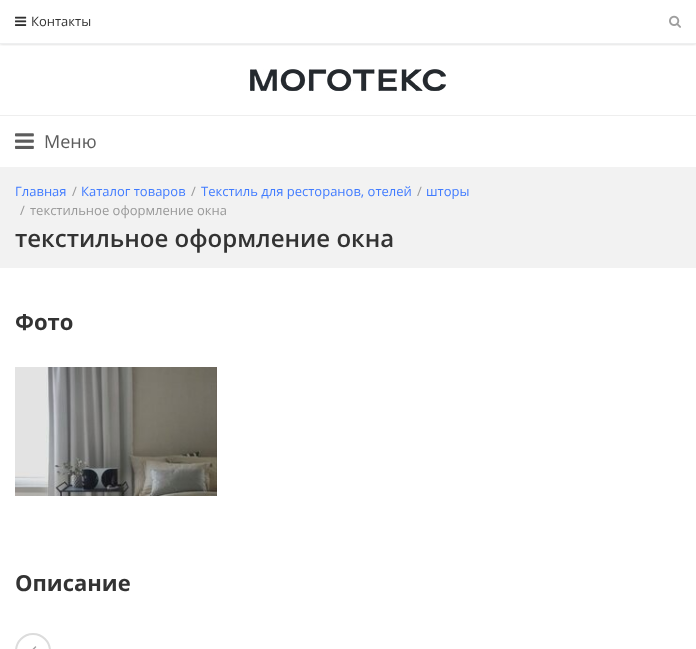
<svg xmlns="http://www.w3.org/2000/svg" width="696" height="649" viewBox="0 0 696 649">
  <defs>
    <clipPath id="clip1"><path d="M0 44h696v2H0z"/></clipPath>
  </defs>
  <rect width="100%" height="100%" fill="#fff"/>
  <g clip-path="url(#clip1)">
    <path d="M0 0h696v44H0z" fill="#00000033" filter="blur(1.5px)"/>
  </g>
  <path d="M0 43h696v1H0z" fill="#eeeff0"/>
  <image x="15" y="16" width="12" height="10" href="img/1.png"/>
  <image x="669" y="15" width="12" height="13" href="img/2.png"/>
  <image x="250" y="69" width="196" height="22" href="img/3.png"/>
  <path d="M0 115h696v1H0z" fill="#eee"/>
  <image x="15" y="133" width="19" height="16" href="img/4.png"/>
  <path d="M0 167h696v101H0z" fill="#f2f2f2"/>
  <image x="15" y="367" width="202" height="129" href="img/5.png"/>
  <circle cx="33" cy="651" r="17" fill="none" stroke="#dcdcdc" stroke-width="2"/>
  <image x="32" y="646" width="5" height="3" href="img/6.png"/>
  <text x="31" y="26" font-family="Open Sans" font-size="13" fill="#333">Контакты</text>
  <text x="44" y="148" font-family="Open Sans" font-size="18" fill="#5c5c5c">Меню</text>
  <text x="15" y="196" font-family="Open Sans" font-size="13" fill="#407bff">Главная</text>
  <text x="72" y="196" font-family="Open Sans" font-size="13" fill="#999">/</text>
  <text x="81" y="196" font-family="Open Sans" font-size="13" fill="#407bff">Каталог товаров</text>
  <text x="191" y="196" font-family="Open Sans" font-size="13" fill="#999">/</text>
  <text x="201" y="196" font-family="Open Sans" font-size="13" fill="#407bff">Текстиль для ресторанов, отелей</text>
  <text x="417" y="196" font-family="Open Sans" font-size="13" fill="#999">/</text>
  <text x="426" y="196" font-family="Open Sans" font-size="13" fill="#407bff">шторы</text>
  <g font-family="Open Sans" font-size="13" fill="#999">
    <text x="20" y="215">/</text>
    <text x="30" y="215">текстильное оформление окна</text>
  </g>
  <text x="15" y="247" font-family="Open Sans" font-size="24" font-weight="600" fill="#333">текстильное оформление окна</text>
  <g font-family="Open Sans" font-size="22" font-weight="bold" fill="#333">
    <text x="15" y="330">Фото</text>
    <text x="15" y="591">Описание</text>
  </g>
</svg>
